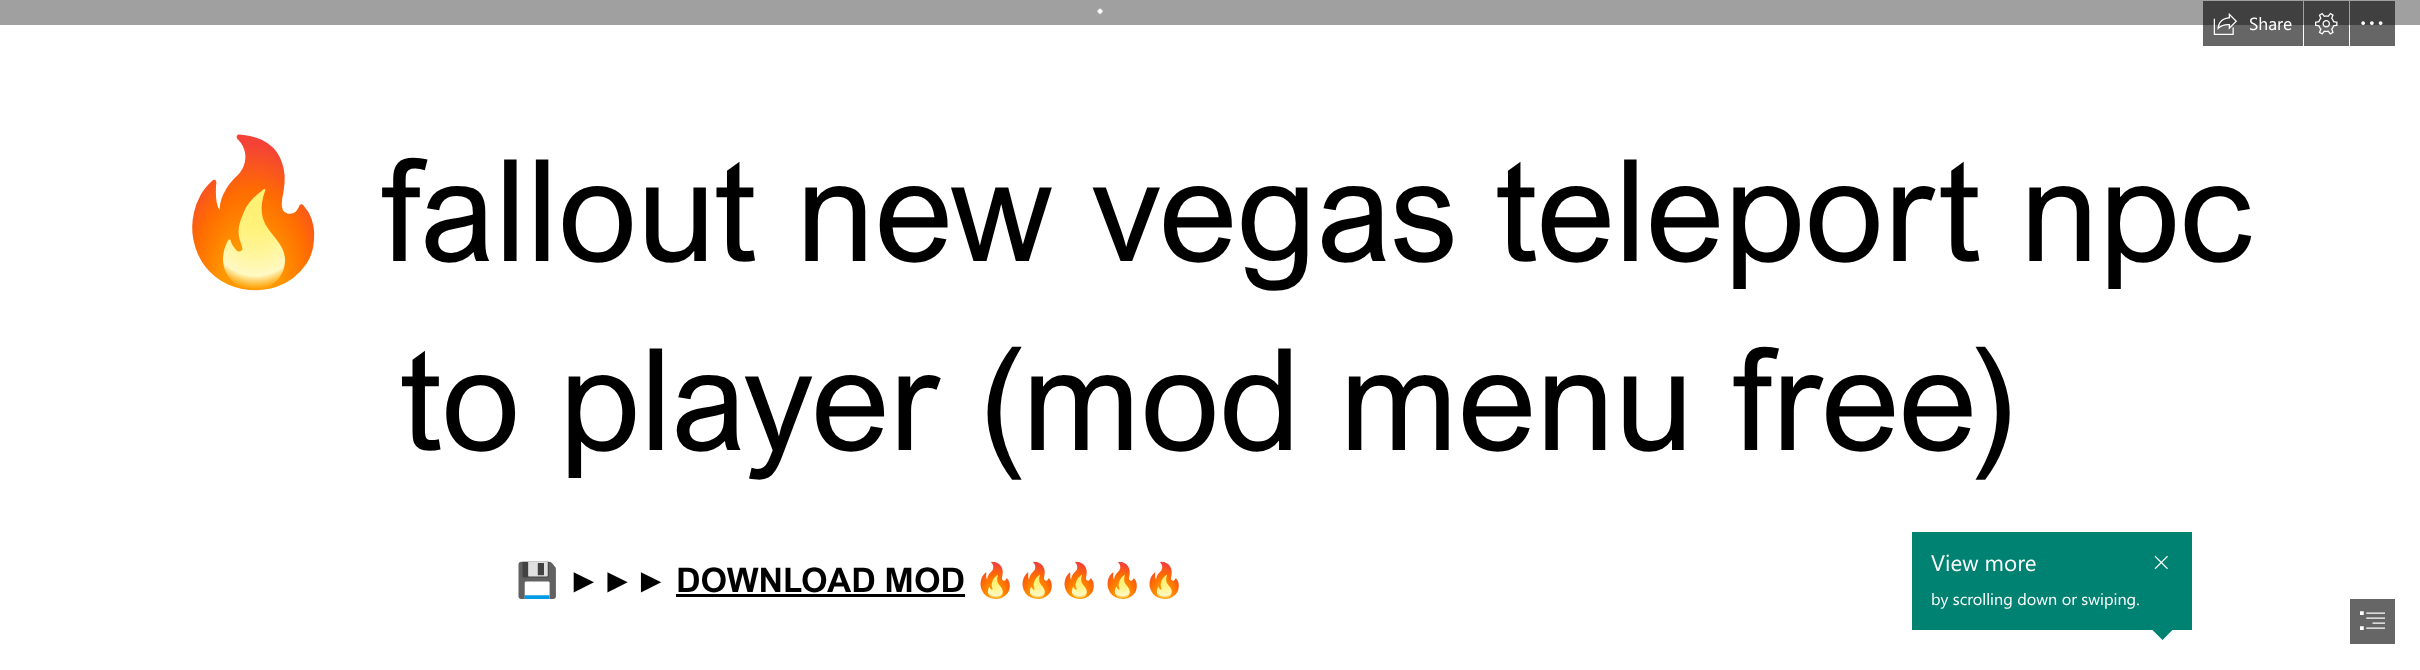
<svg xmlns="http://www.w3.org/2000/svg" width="2420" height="670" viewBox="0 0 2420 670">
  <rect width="100%" height="100%" fill="#fff"/>
  <path d="M0 0h2420v25H0z" fill="#a0a0a0"/>
  <path d="M2203 1h100v24H2203z" fill="#404040"/>
  <path d="M2203 25h100v21H2203z" fill="#666"/>
  <image x="2213" y="13" width="24" height="22" href="img/1.png"/>
  <path d="M2304 1h45v24H2304z" fill="#404040"/>
  <path d="M2304 25h45v21H2304z" fill="#666"/>
  <image x="2315" y="12" width="23" height="23" href="img/2.png"/>
  <path d="M2350 1h45v24H2350z" fill="#404040"/>
  <image x="2361" y="21" width="22" height="4" href="img/3.png"/>
  <image x="1097" y="8" width="6" height="6" href="img/4.png"/>
  <path d="M2350 25h45v21H2350z" fill="#666"/>
  <path d="M676 594h289v3H676z" fill="#000"/>
  <path d="M1912 532h280v98H1912z" fill="#008272"/>
  <image x="2154" y="555" width="14" height="15" href="img/5.png"/>
  <path d="M2152.5 630H2172.5L2162.5 640Z" fill="#008272"/>
  <path d="M2350 599h45v45H2350z" fill="#666"/>
  <image x="2360" y="611" width="25" height="19" href="img/6.png"/>
  <text x="2249" y="30" font-family="Segoe UI" font-size="17.5" fill="#fff">Share</text>
  <text x="165" y="261" font-family="Noto Color Emoji" font-size="141.75" fill="#000">🔥</text>
  <g font-family="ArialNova" font-size="141.75" fill="#000">
    <text x="381" y="261">fallout new vegas teleport npc</text>
    <text x="401" y="450">to player (mod menu free)</text>
  </g>
  <text x="516" y="592" font-family="Noto Color Emoji" font-size="34" font-weight="bold" fill="#000">💾</text>
  <text x="567" y="592" font-family="Liberation Sans" font-size="34" font-weight="bold" fill="#000">►►►</text>
  <text x="676" y="592" font-family="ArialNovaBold" font-size="34" font-weight="bold" fill="#000">DOWNLOAD MOD</text>
  <text x="974" y="592" font-family="Noto Color Emoji" font-size="34" font-weight="bold" fill="#000">🔥🔥🔥🔥🔥</text>
  <text x="1931" y="571" font-family="Segoe UI" font-size="22.5" fill="#fff">View more</text>
  <text x="1931" y="605" font-family="Segoe UI" font-size="16.25" fill="#fff">by scrolling down or swiping.</text>
</svg>
